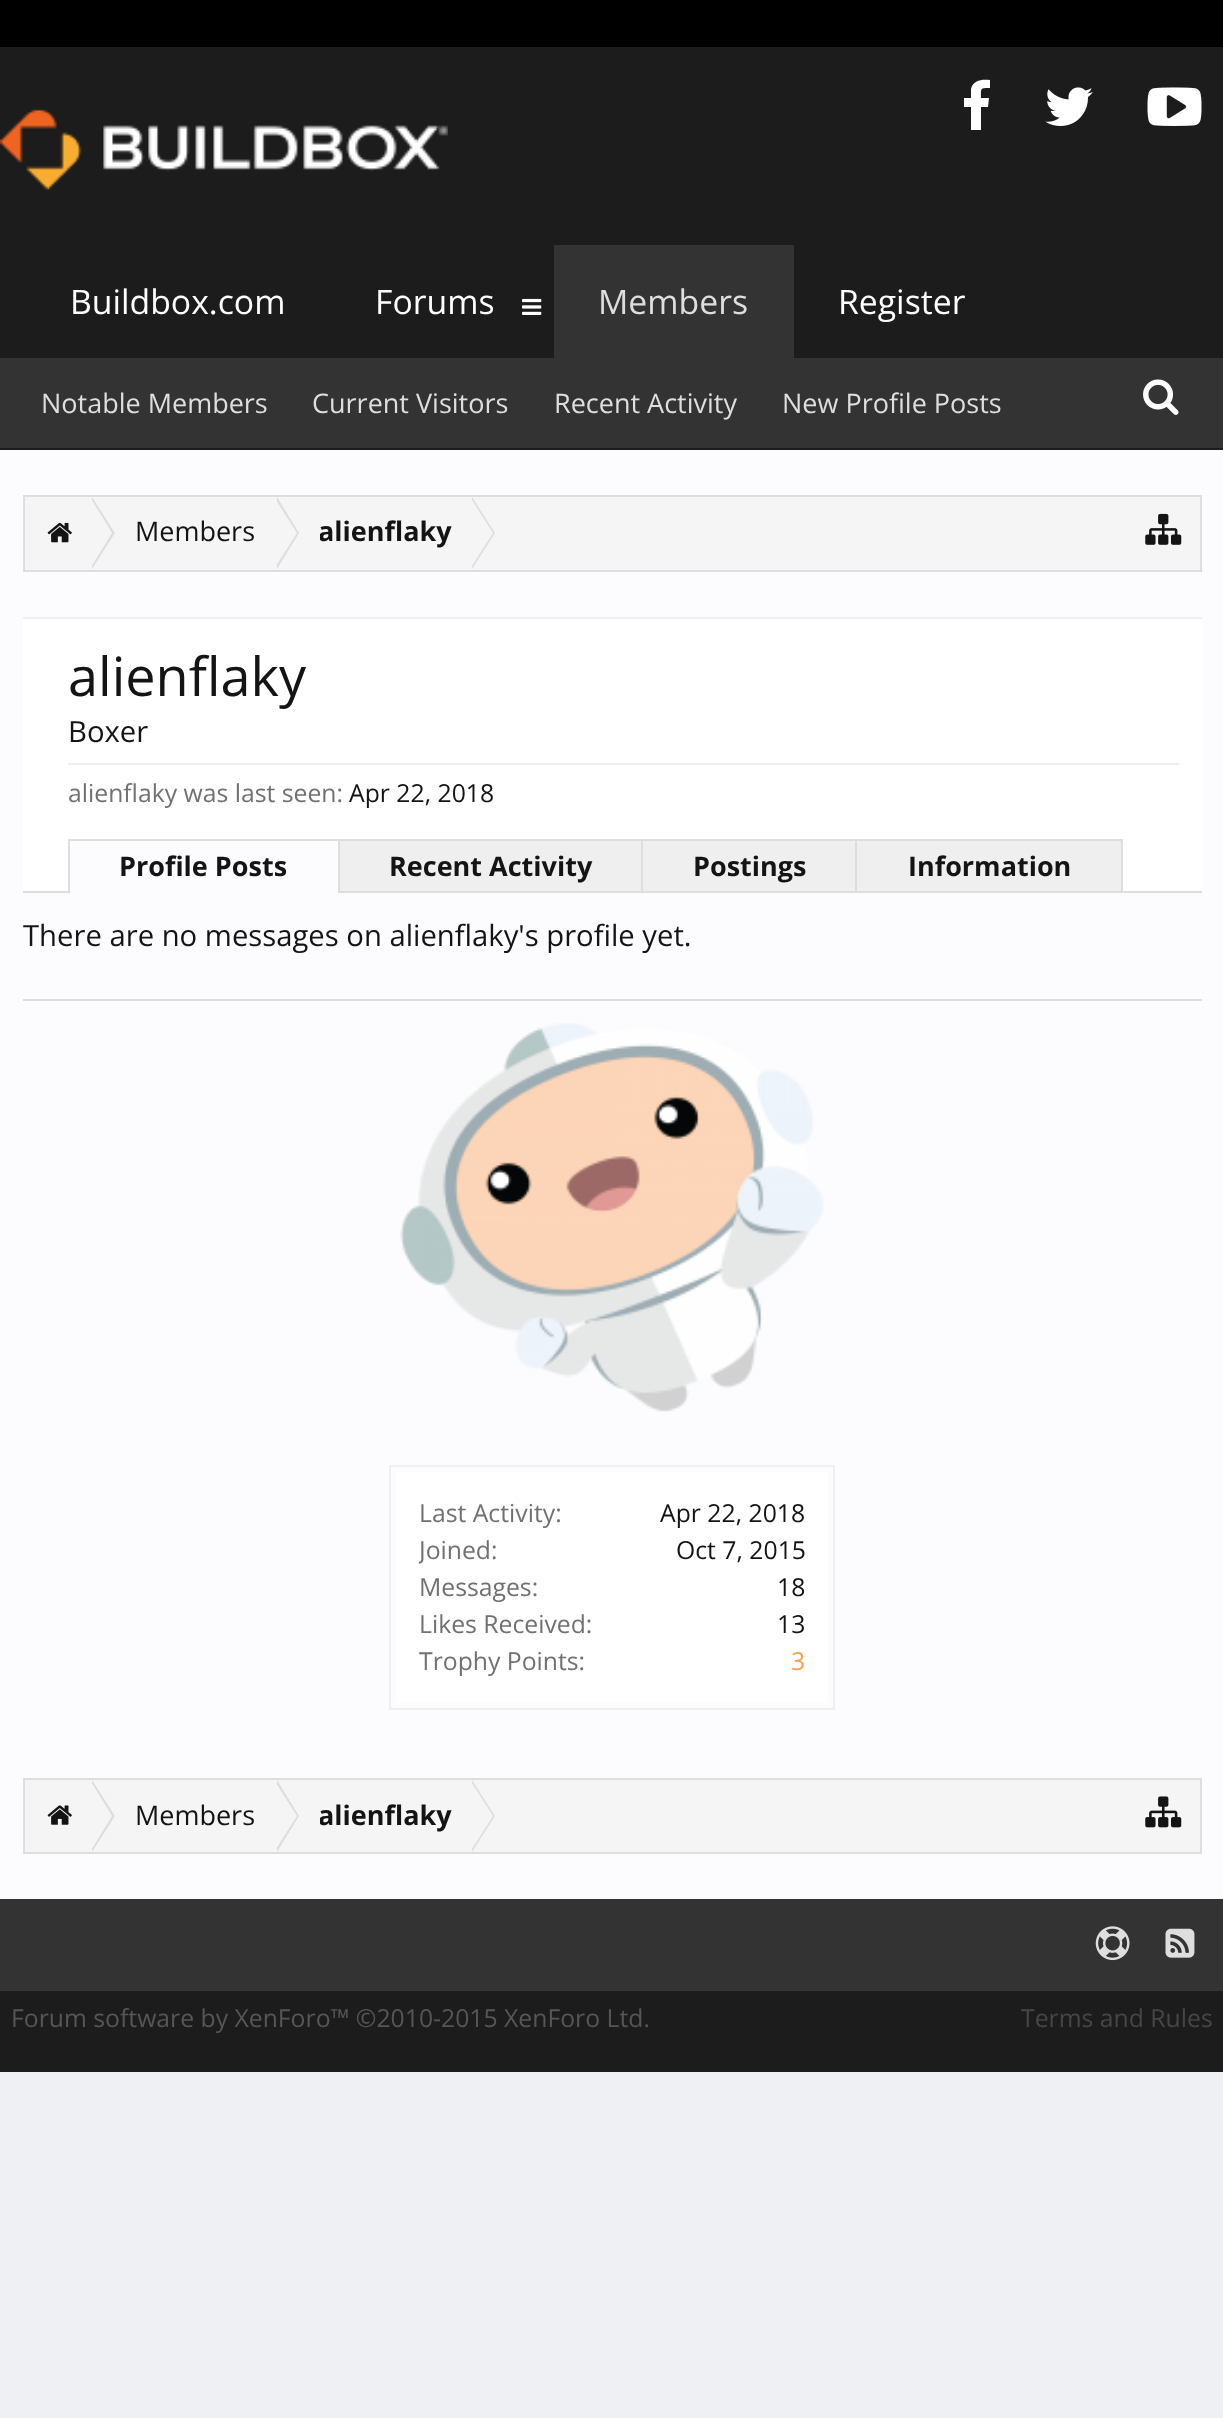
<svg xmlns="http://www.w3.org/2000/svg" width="1223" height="2418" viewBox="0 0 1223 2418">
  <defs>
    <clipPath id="clip1"><path d="M320 497h132v72H320z"/></clipPath>
    <clipPath id="clip2"><path d="M419 1532h387v36H419z"/></clipPath>
    <clipPath id="clip3"><path d="M320 1780h132v72H320z"/></clipPath>
  </defs>
  <rect width="100%" height="100%" fill="#eef0f4"/>
  <path d="M0 0h1223v47H0z" fill="#000"/>
  <path d="M0 47h1223v403H0z" fill="#1c1c1c"/>
  <image x="0" y="109" width="448" height="81" href="img/1.png"/>
  <path d="M990 80V88C980 88 981 88 981 98H989L988 107H981V130H971V107H964V98H971V89C973 80 982 79 990 80Z" fill="#fff"/>
  <image x="1045" y="87" width="48" height="39" href="img/2.png"/>
  <image x="1147" y="87" width="55" height="39" href="img/3.png"/>
  <path d="M554 245h240v113H554z" fill="#333"/>
  <path d="M0 358h1223v90H0z" fill="#333"/>
  <image x="522" y="298" width="20" height="17" href="img/4.png"/>
  <image x="1143" y="379" width="36" height="36" href="img/5.png"/>
  <path d="M0 450h1223v1449H0z" fill="#fcfcff"/>
  <path d="M24 496h1177v75H24z" fill="#f5f5f5" stroke="#dedede" stroke-width="2"/>
  <image x="47" y="522" width="25" height="21" href="img/6.png"/>
  <path d="M92 569V497L115 533Z" fill="#dedede"/>
  <path d="M90 569V497L112 533Z" fill="#f5f5f5"/>
  <path d="M277 569V497L299 533Z" fill="#dedede"/>
  <path d="M274 569V497L297 533Z" fill="#f5f5f5"/>
  <path d="M472 569V497L495 533Z" fill="#dedede"/>
  <path d="M470 569V497L493 533Z" fill="#f5f5f5"/>
  <image x="1145" y="513" width="37" height="32" href="img/7.png"/>
  <path d="M23 999h1179v2H23z" fill="#dedede"/>
  <path d="M23 617h1179v2H23z" fill="#efefef"/>
  <path d="M23 619h1179v272H23z" fill="#fff"/>
  <path d="M68 763h1111v2H68z" fill="#efefef"/>
  <path d="M23 891h1179v2H23z" fill="#dedede"/>
  <path d="M70 841h268v52H70z" fill="#fcfcff"/>
  <path d="M68 839h272v2H68z" fill="#dedede"/>
  <path d="M68 839h2v54H68z" fill="#dedede"/>
  <path d="M340 841h301v50H340z" fill="#efefef"/>
  <path d="M339 840h304v52H339z" fill="none" stroke="#dedede" stroke-width="2"/>
  <path d="M642 840h214v52H642z" fill="#efefef" stroke="#dedede" stroke-width="2"/>
  <path d="M856 840h266v52H856z" fill="#efefef" stroke="#dedede" stroke-width="2"/>
  <image x="400" y="1023" width="424" height="389" href="img/8.png"/>
  <path d="M390 1466h444v243H390z" fill="none" stroke="#efefef" stroke-width="2"/>
  <path d="M396 1472h432v231H396z" fill="#fff"/>
  <path d="M24 1779h1177v74H24z" fill="#f5f5f5" stroke="#dedede" stroke-width="2"/>
  <image x="47" y="1805" width="25" height="20" href="img/9.png"/>
  <path d="M92 1852V1780L115 1816Z" fill="#dedede"/>
  <path d="M90 1852V1780L112 1816Z" fill="#f5f5f5"/>
  <path d="M277 1852V1780L299 1816Z" fill="#dedede"/>
  <path d="M274 1852V1780L297 1816Z" fill="#f5f5f5"/>
  <path d="M472 1852V1780L495 1816Z" fill="#dedede"/>
  <path d="M470 1852V1780L493 1816Z" fill="#f5f5f5"/>
  <image x="1145" y="1796" width="37" height="32" href="img/10.png"/>
  <path d="M0 1899h1223v92H0z" fill="#333"/>
  <image x="1095" y="1926" width="35" height="35" href="img/11.png"/>
  <image x="1165" y="1928" width="30" height="30" href="img/12.png"/>
  <path d="M0 1991h1223v81H0z" fill="#1c1c1c"/>
  <text x="598" y="314" font-family="Open Sans" font-size="33.75" fill="#dedede">Members</text>
  <g font-family="Open Sans" font-size="27" fill="#dedede">
    <text x="41" y="413">Notable Members</text>
    <text x="312" y="413">Current Visitors</text>
    <text x="554" y="413">Recent Activity</text>
    <text x="782" y="413">New Profile Posts</text>
  </g>
  <g font-family="Open Sans" font-size="33.75" fill="#fff">
    <text x="70" y="314">Buildbox.com</text>
    <text x="375" y="314">Forums</text>
    <text x="838" y="314">Register</text>
  </g>
  <text x="135" y="541" font-family="Open Sans" font-size="27" fill="#141414">Members</text>
  <g clip-path="url(#clip1)">
    <text x="318" y="541" font-family="Open Sans" font-size="27" font-weight="bold" fill="#141414">alienflaky</text>
  </g>
  <text x="68" y="696" font-family="Open Sans" font-size="54" fill="#141414">alienflaky</text>
  <text x="68" y="742" font-family="Open Sans" font-size="29.25" fill="#141414">Boxer</text>
  <text x="68" y="802" font-family="Open Sans" font-size="24.75" fill="#717171">alienflaky was last seen:</text>
  <text x="349" y="802" font-family="Open Sans" font-size="24.75" fill="#141414">Apr 22, 2018</text>
  <g font-family="Open Sans" font-size="27" font-weight="bold" fill="#141414">
    <text x="119" y="876">Profile Posts</text>
    <text x="389" y="876">Recent Activity</text>
    <text x="693" y="876">Postings</text>
    <text x="908" y="876">Information</text>
  </g>
  <text x="23" y="946" font-family="Open Sans" font-size="29.25" fill="#141414">There are no messages on alienflaky's profile yet.</text>
  <text x="419" y="1522" font-family="Open Sans" font-size="24.75" fill="#717171">Last Activity:</text>
  <text x="660" y="1522" font-family="Open Sans" font-size="24.75" fill="#141414">Apr 22, 2018</text>
  <g clip-path="url(#clip2)">
    <text x="419" y="1559" font-family="Open Sans" font-size="24.75" fill="#717171">Joined:</text>
  </g>
  <text x="676" y="1559" font-family="Open Sans" font-size="24.75" fill="#141414">Oct 7, 2015</text>
  <text x="419" y="1596" font-family="Open Sans" font-size="24.75" fill="#717171">Messages:</text>
  <text x="777" y="1596" font-family="Open Sans" font-size="24.75" fill="#141414">18</text>
  <text x="419" y="1633" font-family="Open Sans" font-size="24.75" fill="#717171">Likes Received:</text>
  <text x="777" y="1633" font-family="Open Sans" font-size="24.75" fill="#141414">13</text>
  <text x="419" y="1670" font-family="Open Sans" font-size="24.75" fill="#717171">Trophy Points:</text>
  <text x="791" y="1670" font-family="Open Sans" font-size="24.75" fill="#fd9e49">3</text>
  <text x="135" y="1825" font-family="Open Sans" font-size="27" fill="#141414">Members</text>
  <g clip-path="url(#clip3)">
    <text x="318" y="1825" font-family="Open Sans" font-size="27" font-weight="bold" fill="#141414">alienflaky</text>
  </g>
  <text x="11" y="2027" font-family="Open Sans" font-size="24.75" fill="#565656">Forum software by XenForo™ ©2010-2015 XenForo Ltd.</text>
  <text x="1021" y="2027" font-family="Open Sans" font-size="24.75" fill="#464646">Terms and Rules</text>
</svg>
